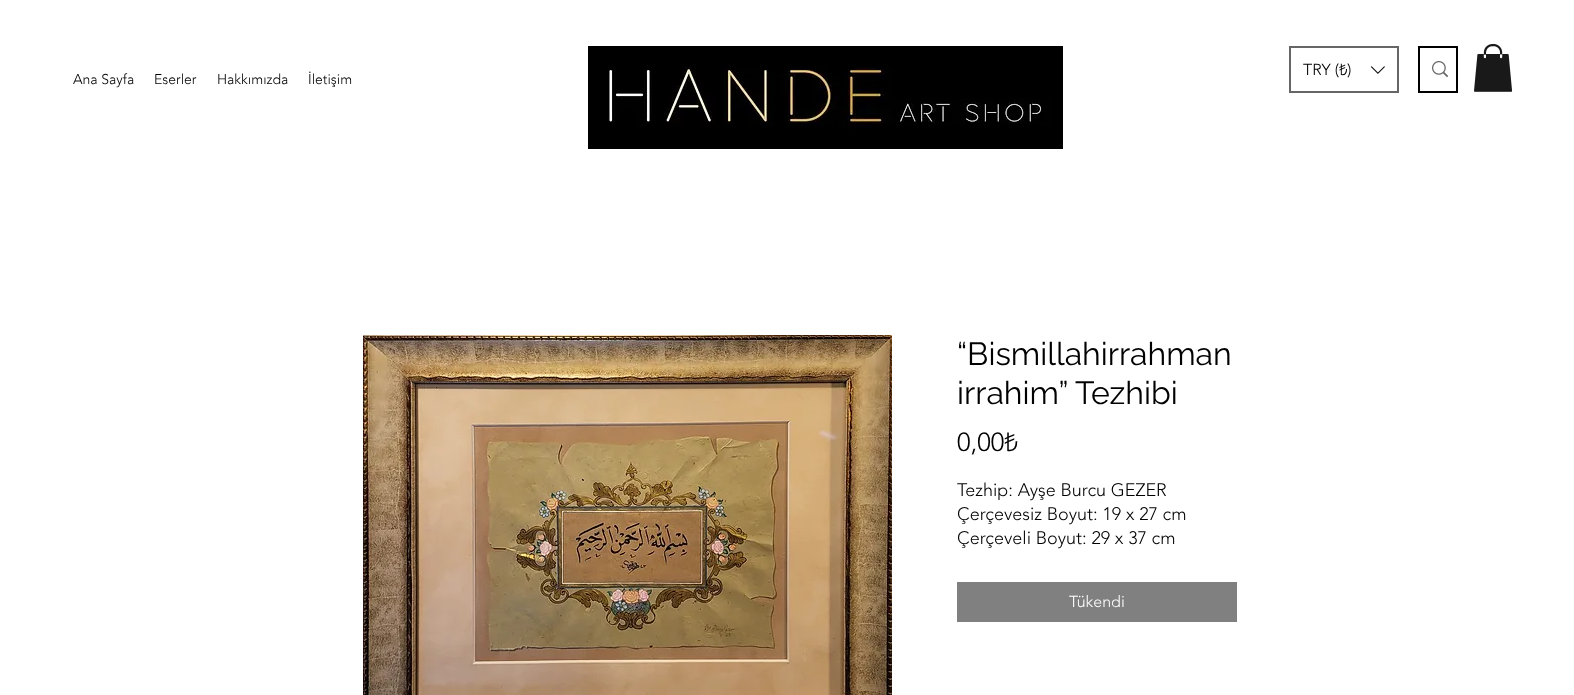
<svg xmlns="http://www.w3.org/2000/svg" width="1574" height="695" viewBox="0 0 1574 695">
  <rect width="100%" height="100%" fill="#fff"/>
  <image x="588" y="46" width="475" height="103" href="img/1.png"/>
  <path d="M1290 47h108v45H1290z" fill="none" stroke="#666" stroke-width="2"/>
  <image x="1370" y="66" width="15" height="8" href="img/2.png"/>
  <path d="M1419 47h38v45H1419z" fill="none" stroke="#000" stroke-width="2"/>
  <image x="1432" y="61" width="16" height="17" href="img/3.png"/>
  <image x="1474" y="44" width="39" height="48" href="img/4.png"/>
  <image x="363" y="335" width="529" height="360" href="img/5.png"/>
  <path d="M957 582h280v40H957z" fill="#808080"/>
  <g font-family="'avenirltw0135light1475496'" font-size="14" font-weight="300" fill="#000">
    <text x="73" y="84">Ana Sayfa</text>
    <text x="154" y="84">Eserler</text>
    <text x="217" y="84">Hakkımızda</text>
    <text x="308" y="84">İletişim</text>
  </g>
  <text x="1303" y="75" font-family="'avenirltw0135light1475496'" font-size="16" font-weight="300" fill="#000">TRY (₺)</text>
  <g font-family="Raleway" font-size="32" fill="#000">
    <text x="957" y="365">“Bismillahirrahman</text>
    <text x="957" y="404">irrahim” Tezhibi</text>
  </g>
  <text x="957" y="451" font-family="'avenirltw0135light1475496'" font-size="26" font-weight="300" fill="#000">0,00₺</text>
  <g font-family="'avenirltw0135light1475496'" font-size="18" font-weight="300" fill="#000">
    <text x="957" y="496">Tezhip: Ayşe Burcu GEZER</text>
    <text x="957" y="520">Çerçevesiz Boyut: 19 x 27 cm</text>
    <text x="957" y="544">Çerçeveli Boyut: 29 x 37 cm</text>
  </g>
  <text x="1069" y="607" font-family="'avenirltw0135light1475496'" font-size="16" font-weight="300" fill="#fff">Tükendi</text>
</svg>
